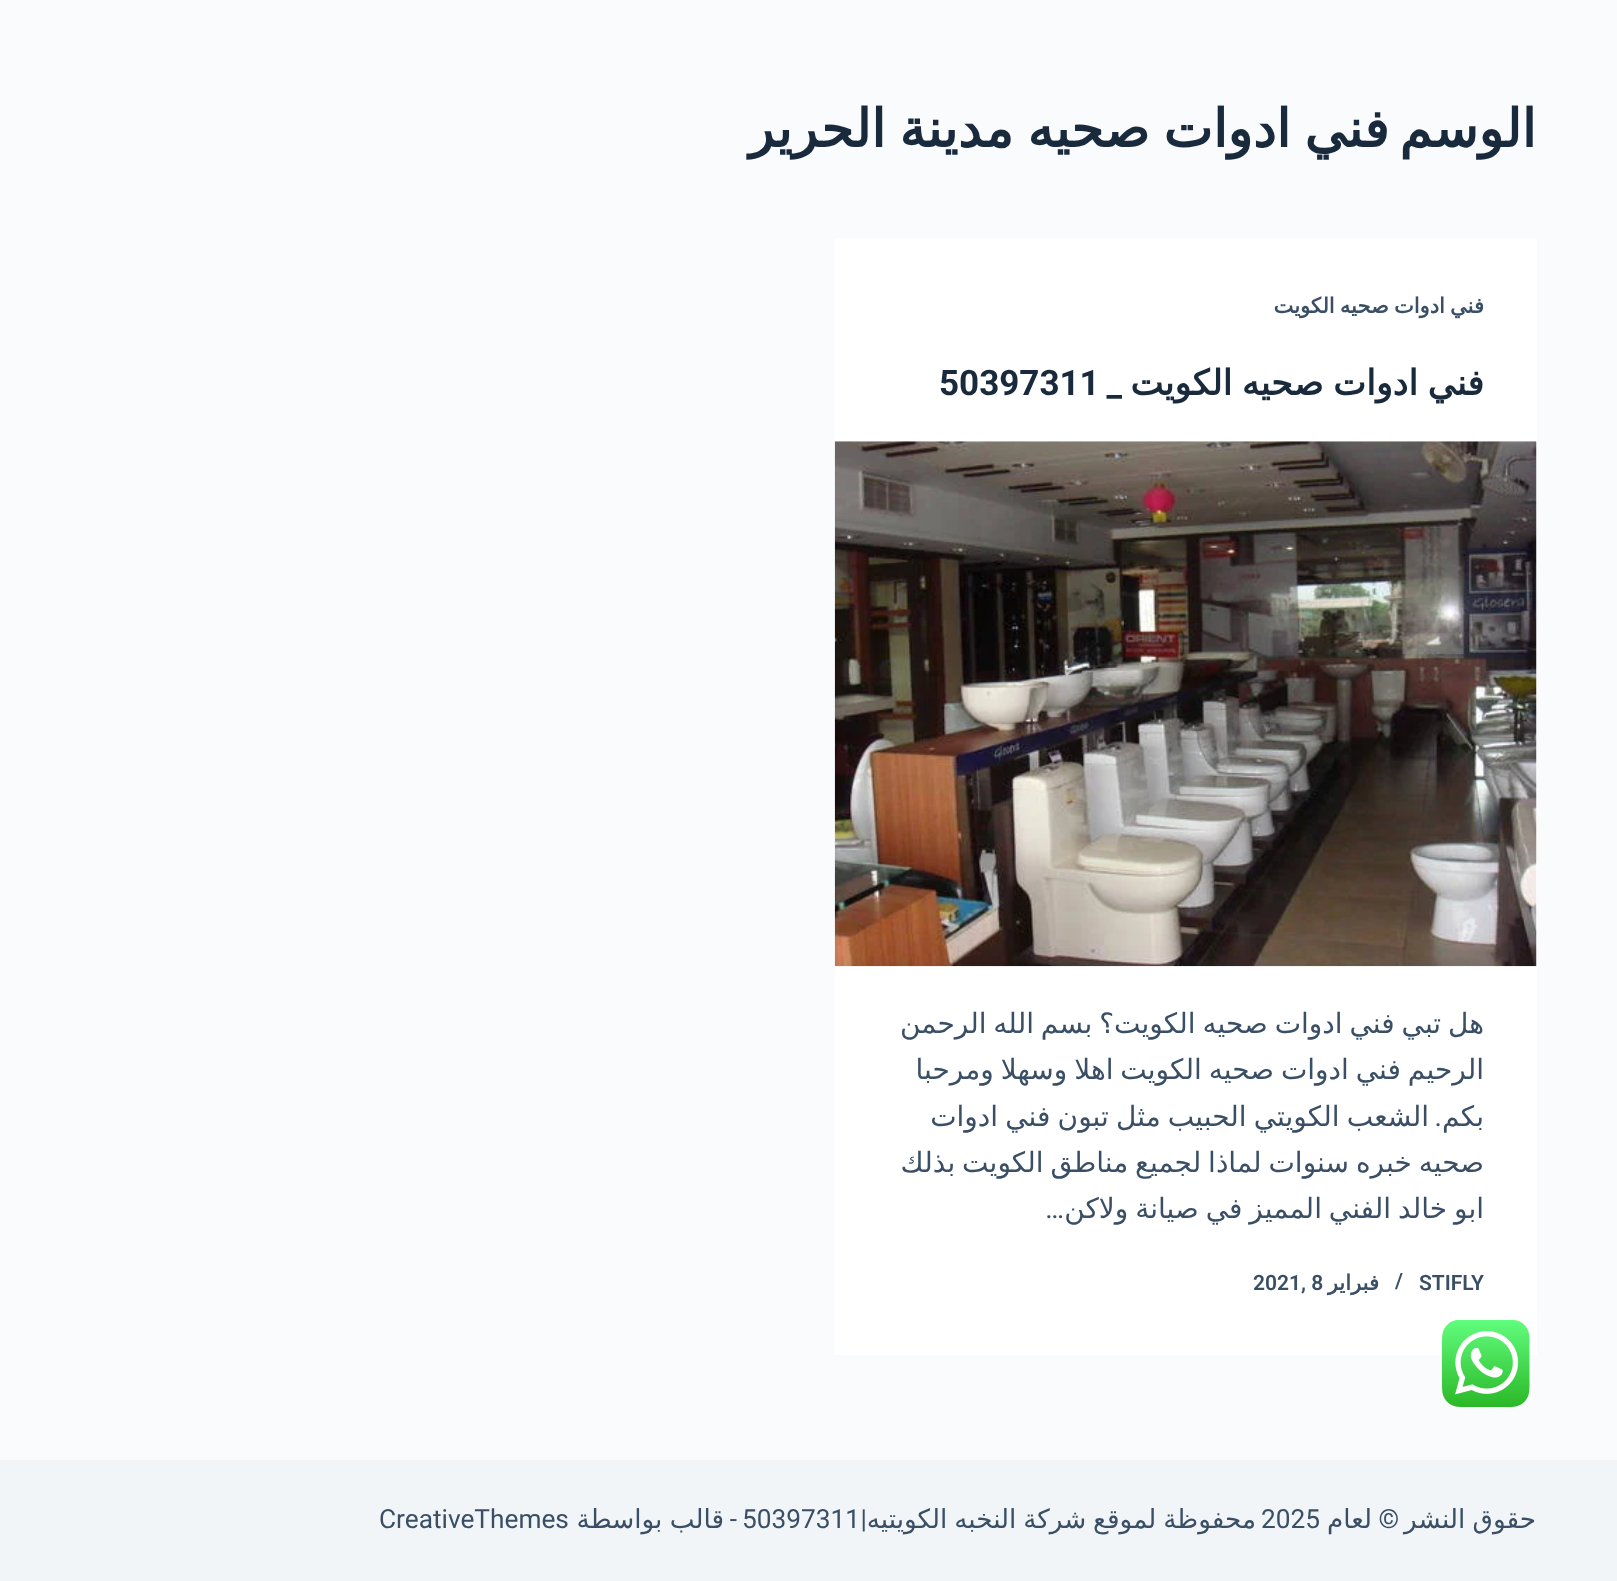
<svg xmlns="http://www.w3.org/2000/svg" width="1617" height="1581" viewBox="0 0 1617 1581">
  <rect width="100%" height="100%" fill="#fafbfc"/>
  <path d="M835 238h702v1117H835z" fill="#fff"/>
  <image x="834" y="441" width="703" height="526" href="img/1.png"/>
  <path d="M0 1460h1617v121H0z" fill="#f2f5f7"/>
  <image x="1442" y="1320" width="88" height="87" href="img/2.png"/>
  <g font-family="DejaVu Sans" font-size="52.5" font-weight="bold" direction="rtl" fill="#192a3d">
    <text x="1536" y="147">الوسم</text>
    <text x="1389" y="147" word-spacing="-3">فني ادوات صحيه مدينة الحرير</text>
  </g>
  <text x="1484" y="313" word-spacing="-1.5" font-family="DejaVu Sans" font-size="21" font-weight="bold" direction="rtl" fill="#3a4f66">فني ادوات صحيه الكويت</text>
  <text x="1484" y="395" word-spacing="-1.5" font-family="DejaVu Sans" font-size="35" font-weight="bold" direction="rtl" fill="#192a3d">فني ادوات صحيه الكويت</text>
  <text x="939" y="395" font-family="Roboto" font-size="35" font-weight="bold" fill="#192a3d">50397311</text>
  <text x="1122" y="395" font-family="Roboto" font-size="35" font-weight="bold" direction="rtl" fill="#192a3d">_</text>
  <g font-family="DejaVu Sans" font-size="28" direction="rtl" fill="#3a4f66">
    <text x="1484" y="1033" word-spacing="-2">هل تبي فني ادوات صحيه الكويت؟ بسم الله الرحمن</text>
    <text x="1484" y="1079" word-spacing="-2">الرحيم فني ادوات صحيه الكويت اهلا وسهلا ومرحبا</text>
    <text x="1484" y="1126">بكم</text>
    <text x="1429" y="1126" word-spacing="-1.75">الشعب الكويتي الحبيب مثل تبون فني ادوات</text>
  </g>
  <text x="1442" y="1126" font-family="Roboto" font-size="28" direction="rtl" fill="#3a4f66">.</text>
  <g font-family="DejaVu Sans" font-size="28" direction="rtl" fill="#3a4f66">
    <text x="1484" y="1172" word-spacing="-2">صحيه خبره سنوات لماذا لجميع مناطق الكويت بذلك</text>
    <text x="1484" y="1218" word-spacing="-2">ابو خالد الفني المميز في صيانة ولاكن</text>
  </g>
  <text x="1064" y="1218" font-family="Roboto" font-size="28" direction="rtl" fill="#3a4f66">…</text>
  <g font-family="Roboto" font-size="21" font-weight="600" fill="#3a4f66">
    <text x="1419" y="1290">STIFLY</text>
    <text x="1395" y="1288">/</text>
  </g>
  <text x="1379" y="1290" font-family="DejaVu Sans" font-size="21" font-weight="bold" direction="rtl" fill="#3a4f66">فبراير</text>
  <text x="1253" y="1290" font-family="Roboto" font-size="21" font-weight="600" fill="#3a4f66">2021, 8</text>
  <text x="1536" y="1528" word-spacing="-1" font-family="DejaVu Sans" font-size="26.25" direction="rtl" fill="#3a4f66">حقوق النشر</text>
  <text x="1399" y="1528" font-family="Roboto" font-size="26.25" direction="rtl" fill="#3a4f66">©</text>
  <text x="1372" y="1528" font-family="DejaVu Sans" font-size="26.25" direction="rtl" fill="#3a4f66">لعام</text>
  <text x="1261" y="1528" font-family="Roboto" font-size="26.25" fill="#3a4f66">2025</text>
  <text x="1256" y="1528" word-spacing="-1.5" font-family="DejaVu Sans" font-size="26.25" direction="rtl" fill="#3a4f66">محفوظة لموقع شركة النخبه الكويتيه</text>
  <text x="867" y="1528" font-family="Roboto" font-size="26.25" direction="rtl" fill="#3a4f66">|</text>
  <text x="742" y="1528" font-family="Roboto" font-size="26.25" fill="#3a4f66">50397311</text>
  <text x="737" y="1528" font-family="Roboto" font-size="26.25" direction="rtl" fill="#3a4f66">-</text>
  <text x="724" y="1528" word-spacing="-1" font-family="DejaVu Sans" font-size="26.25" direction="rtl" fill="#3a4f66">قالب بواسطة</text>
  <text x="379" y="1528" font-family="Roboto" font-size="26.25" fill="#3a4f66">CreativeThemes</text>
</svg>
